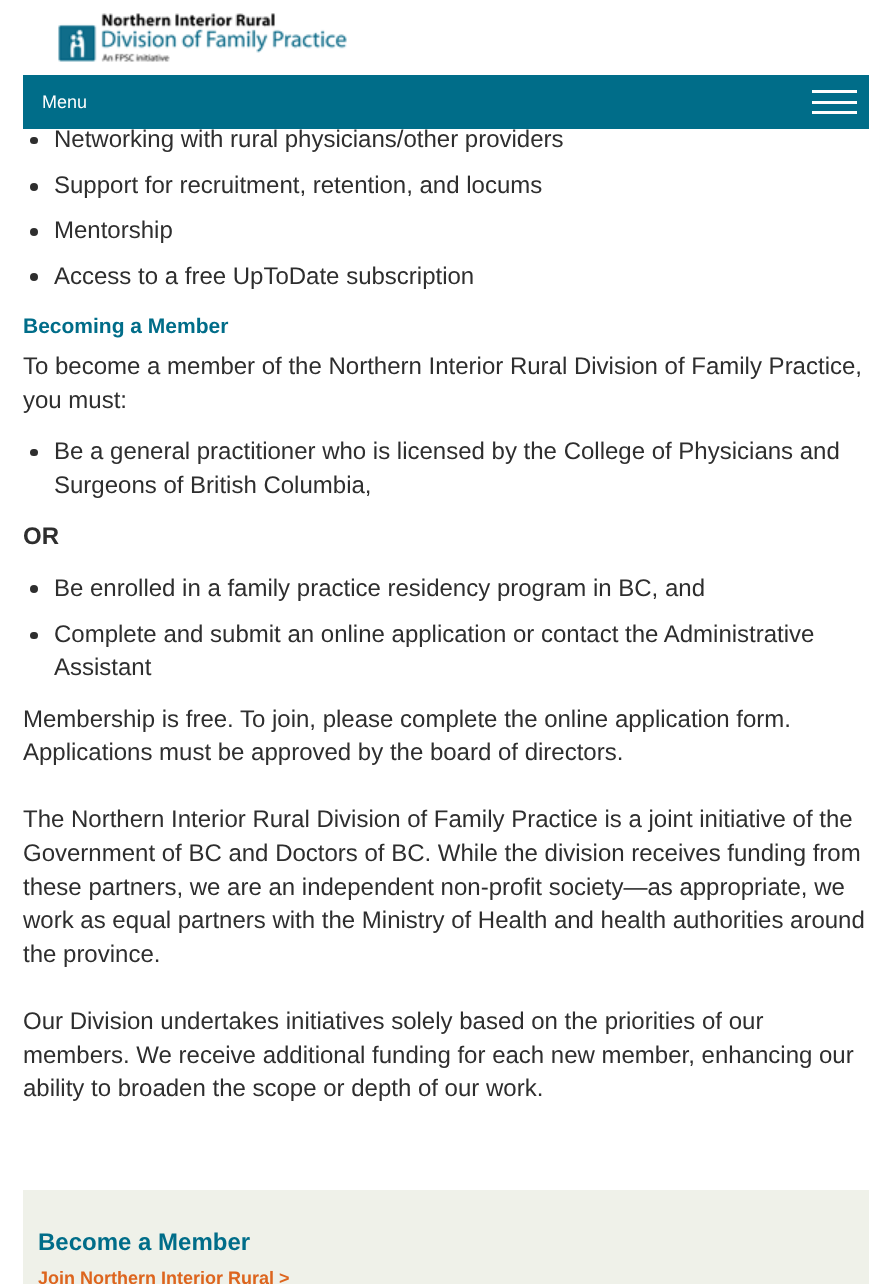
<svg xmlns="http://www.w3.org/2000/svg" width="891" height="1284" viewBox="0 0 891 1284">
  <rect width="100%" height="100%" fill="#fff"/>
  <image x="58" y="13" width="289" height="49" href="img/1.png"/>
  <path d="M23 75h846v54H23z" fill="#006d89"/>
  <path d="M812 90h45v3H812z" fill="#fefefe"/>
  <path d="M812 111h45v3H812z" fill="#fefefe"/>
  <path d="M812 101h45v3H812z" fill="#fefefe"/>
  <rect x="30" y="137" width="8" height="7" rx="3.5" fill="#2e2e2e"/>
  <circle cx="34" cy="187" r="4" fill="#2e2e2e"/>
  <circle cx="34" cy="232" r="4" fill="#2e2e2e"/>
  <circle cx="34" cy="277" r="4" fill="#2e2e2e"/>
  <rect x="30" y="449" width="8" height="7" rx="3.5" fill="#2e2e2e"/>
  <circle cx="34" cy="589" r="4" fill="#2e2e2e"/>
  <rect x="30" y="632" width="8" height="7" rx="3.5" fill="#2e2e2e"/>
  <path d="M23 1190h846v94H23z" fill="#eff1e9"/>
  <text x="42" y="108" font-family="Liberation Sans" font-size="18" fill="#fefefe">Menu</text>
  <g font-family="Liberation Sans" font-size="24" fill="#2e2e2e">
    <text x="54" y="147">Networking with rural physicians/other providers</text>
    <text x="54" y="193">Support for recruitment, retention, and locums</text>
    <text x="54" y="238">Mentorship</text>
    <text x="54" y="284">Access to a free UpToDate subscription</text>
  </g>
  <text x="23" y="333" font-family="Liberation Sans" font-size="21" font-weight="bold" fill="#006d89">Becoming a Member</text>
  <g font-family="Liberation Sans" font-size="24" fill="#2e2e2e">
    <text x="23" y="374">To become a member of the Northern Interior Rural Division of Family Practice,</text>
    <text x="23" y="408">you must:</text>
    <text x="54" y="459">Be a general practitioner who is licensed by the College of Physicians and</text>
    <text x="54" y="493">Surgeons of British Columbia,</text>
  </g>
  <text x="23" y="544" font-family="Liberation Sans" font-size="24" font-weight="bold" fill="#2e2e2e">OR</text>
  <g font-family="Liberation Sans" font-size="24" fill="#2e2e2e">
    <text x="54" y="596">Be enrolled in a family practice residency program in BC, and</text>
    <text x="54" y="642">Complete and submit an online application or contact the Administrative</text>
    <text x="54" y="675">Assistant</text>
    <text x="23" y="727">Membership is free. To join, please complete the online application form.</text>
    <text x="23" y="760">Applications must be approved by the board of directors.</text>
    <text x="23" y="827">The Northern Interior Rural Division of Family Practice is a joint initiative of the</text>
    <text x="23" y="861">Government of BC and Doctors of BC. While the division receives funding from</text>
    <text x="23" y="895">these partners, we are an independent non-profit society—as appropriate, we</text>
    <text x="23" y="928">work as equal partners with the Ministry of Health and health authorities around</text>
    <text x="23" y="962">the province.</text>
    <text x="23" y="1029">Our Division undertakes initiatives solely based on the priorities of our</text>
    <text x="23" y="1063">members. We receive additional funding for each new member, enhancing our</text>
    <text x="23" y="1096">ability to broaden the scope or depth of our work.</text>
  </g>
  <text x="38" y="1250" font-family="Liberation Sans" font-size="24" font-weight="bold" fill="#006d89">Become a Member</text>
  <text x="38" y="1284" font-family="Liberation Sans" font-size="18" font-weight="bold" fill="#dd651e">Join Northern Interior Rural &gt;</text>
</svg>
